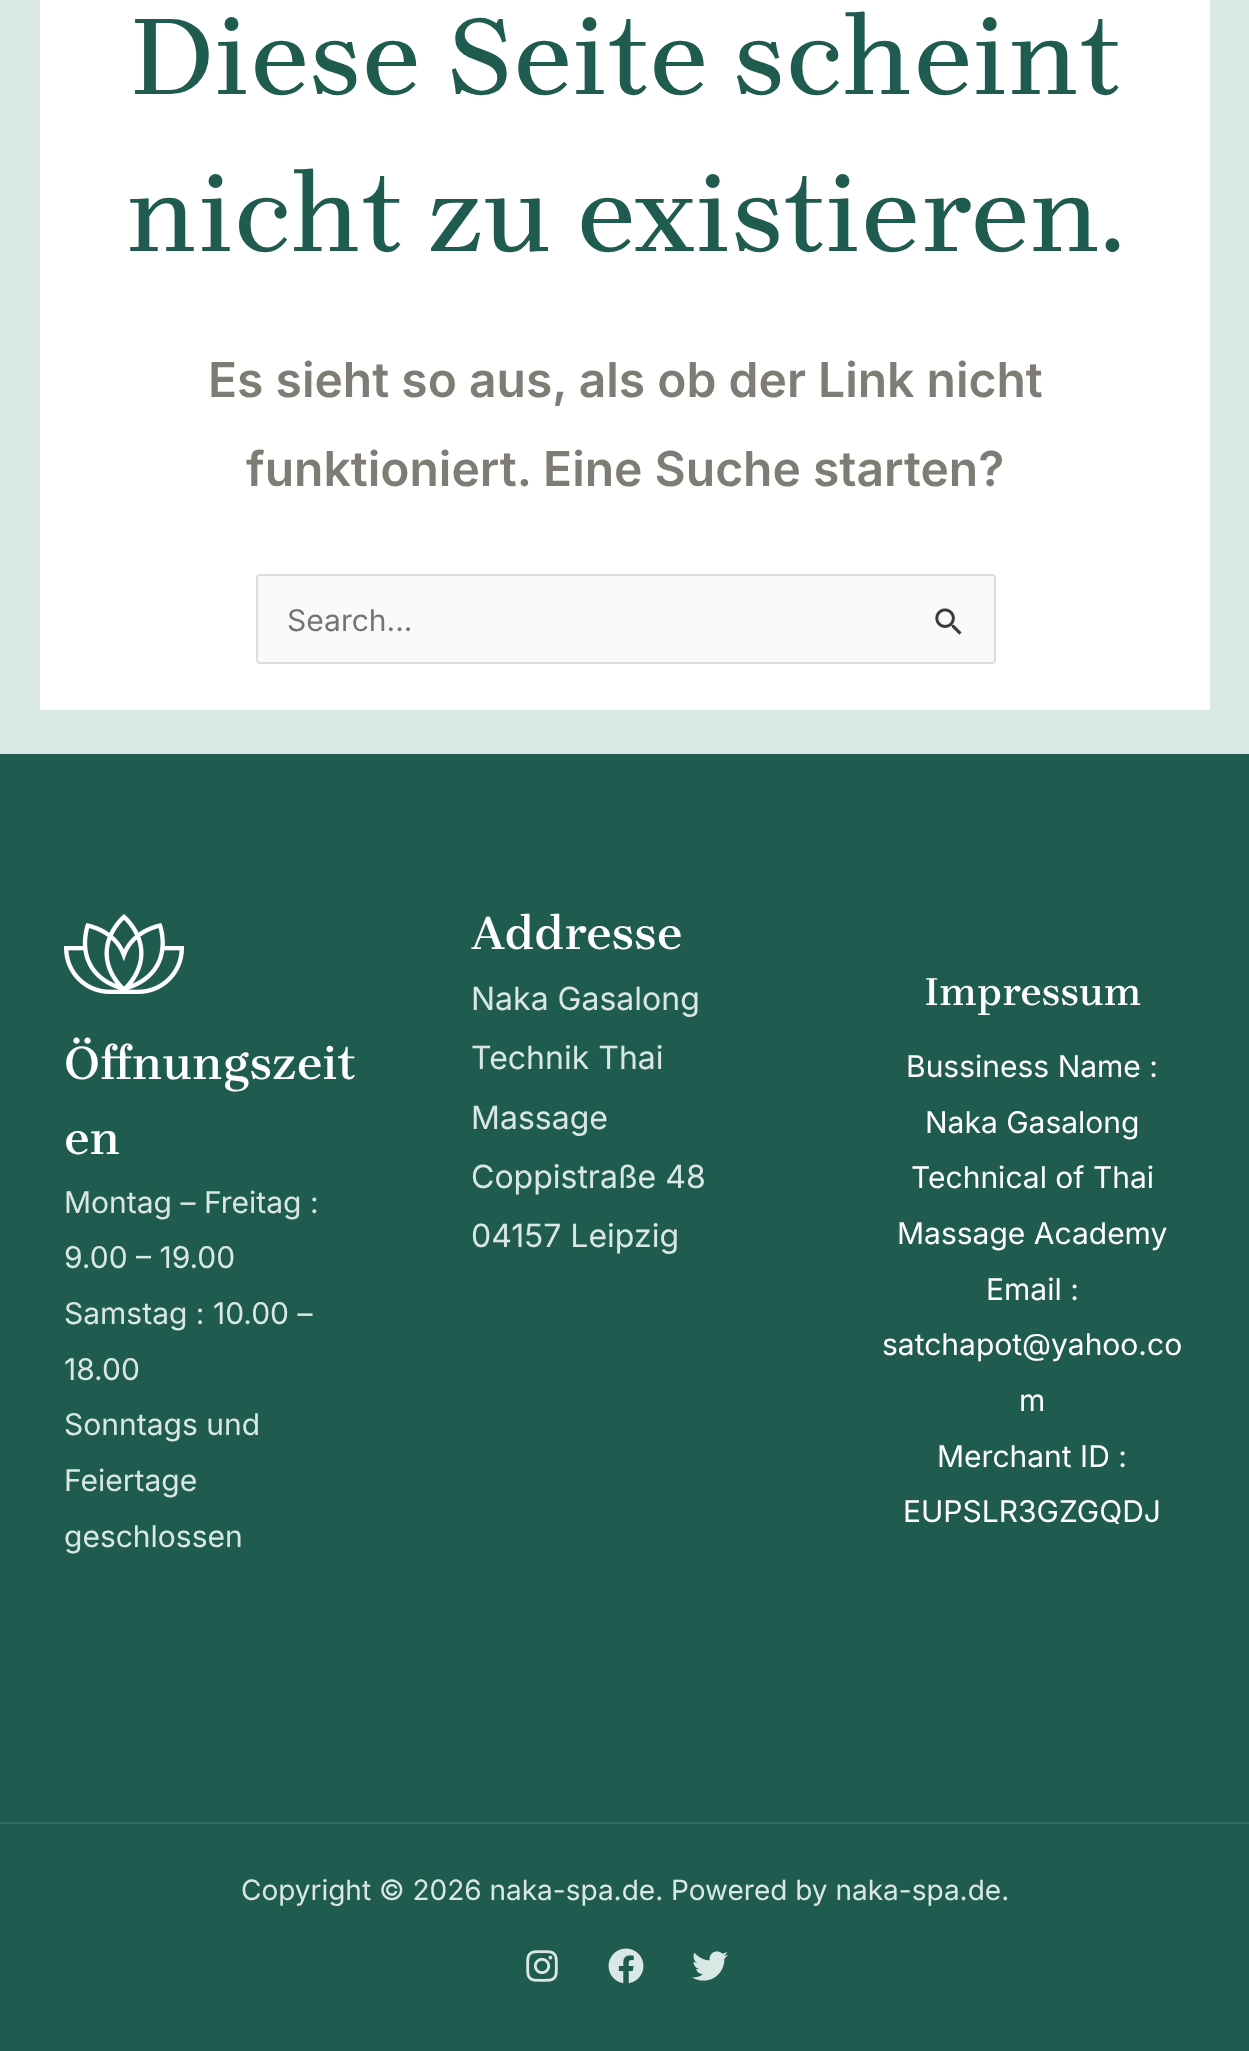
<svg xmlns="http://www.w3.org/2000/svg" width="1249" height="2051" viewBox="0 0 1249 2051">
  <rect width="100%" height="100%" fill="#d9e8e5"/>
  <path d="M40 0h1170v710H40z" fill="#fff"/>
  <rect x="257" y="575" width="738" height="88" rx="3" fill="#fafafa" stroke="#ddd" stroke-width="2"/>
  <image x="935" y="608" width="27" height="27" href="img/1.png"/>
  <path d="M0 754h1249v1297H0z" fill="#205b4f"/>
  <image x="64" y="914" width="120" height="80" href="img/2.png"/>
  <path d="M0 1822h1249v2H0z" fill="#32685d"/>
  <image x="526" y="1950" width="32" height="32" href="img/3.png"/>
  <image x="608" y="1948" width="36" height="36" href="img/4.png"/>
  <image x="692" y="1951" width="36" height="30" href="img/5.png"/>
  <g font-family="'Brygada 1918'" font-size="112" font-weight="500" fill="#205b4f">
    <text x="130" y="94">Diese Seite scheint</text>
    <text x="126" y="251">nicht zu existieren.</text>
  </g>
  <g font-family="Inter" font-size="48" font-weight="600" fill="#7f7c76">
    <text x="208" y="397">Es sieht so aus, als ob der Link nicht</text>
    <text x="246" y="486">funktioniert. Eine Suche starten?</text>
  </g>
  <text x="287" y="631" font-family="Inter" font-size="30" fill="#757575">Search...</text>
  <g font-family="'Brygada 1918'" font-size="48" font-weight="600" fill="#fff">
    <text x="64" y="1079">Öffnungszeit</text>
    <text x="64" y="1154">en</text>
  </g>
  <g font-family="Inter" font-size="30" fill="#d9e8e5">
    <text x="64" y="1213">Montag – Freitag :</text>
    <text x="64" y="1268">9.00 – 19.00</text>
    <text x="64" y="1324">Samstag : 10.00 –</text>
    <text x="64" y="1380">18.00</text>
    <text x="64" y="1435">Sonntags und</text>
    <text x="64" y="1491">Feiertage</text>
    <text x="64" y="1547">geschlossen</text>
  </g>
  <text x="471" y="949" font-family="'Brygada 1918'" font-size="48" font-weight="600" fill="#fff">Addresse</text>
  <g font-family="Inter" font-size="32" fill="#d9e8e5">
    <text x="471" y="1010">Naka Gasalong</text>
    <text x="471" y="1069">Technik Thai</text>
    <text x="471" y="1129">Massage</text>
    <text x="471" y="1188">Coppistraße 48</text>
    <text x="471" y="1247">04157 Leipzig</text>
  </g>
  <text x="924" y="1005" font-family="'Brygada 1918'" font-size="40" font-weight="600" fill="#fff">Impressum</text>
  <g font-family="Inter" font-size="30" fill="#fff">
    <text x="906" y="1077">Bussiness Name :</text>
    <text x="925" y="1133">Naka Gasalong</text>
    <text x="911" y="1188">Technical of Thai</text>
    <text x="897" y="1244">Massage Academy</text>
    <text x="986" y="1300">Email :</text>
    <text x="882" y="1355">satchapot@yahoo.co</text>
    <text x="1019" y="1411">m</text>
    <text x="937" y="1467">Merchant ID :</text>
    <text x="903" y="1522">EUPSLR3GZGQDJ</text>
  </g>
  <text x="241" y="1900" font-family="Inter" font-size="28" fill="#d9e8e5">Copyright © 2026 naka-spa.de. Powered by naka-spa.de.</text>
</svg>
